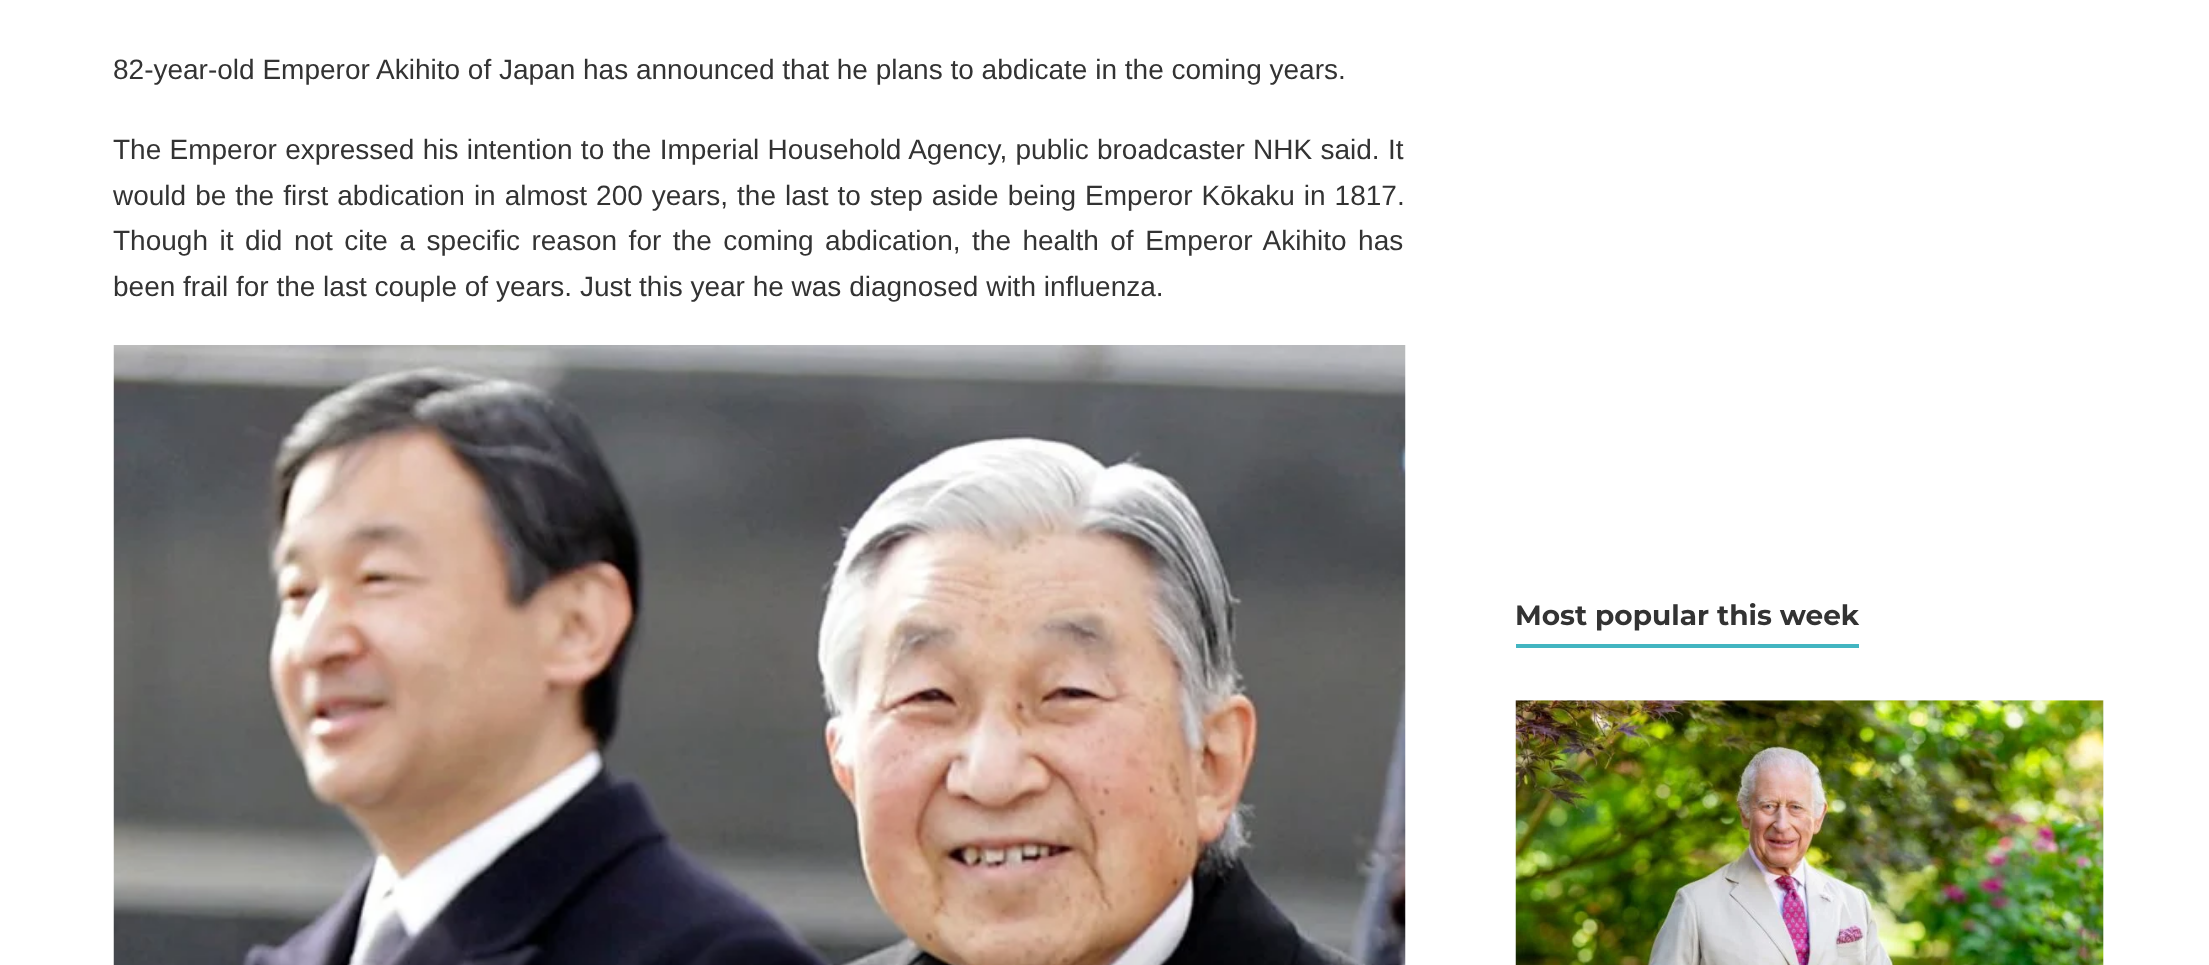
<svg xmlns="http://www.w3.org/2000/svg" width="2209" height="965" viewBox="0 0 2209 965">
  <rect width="100%" height="100%" fill="#fff"/>
  <image x="113" y="345" width="1293" height="620" href="img/1.png"/>
  <path d="M1516 644h343v4H1516z" fill="#42b5c1"/>
  <path d="M1516 700h588v265H1516z" fill="#f7f7f7"/>
  <image x="1922" y="700" width="117" height="1" href="img/3.png"/>
  <image x="1515" y="700" width="589" height="265" href="img/2.png"/>
  <g font-family="Liberation Sans" font-size="28" fill="#333">
    <text x="113" y="79">82-year-old Emperor Akihito of Japan has announced that he plans to abdicate in the coming years.</text>
    <text x="113" y="159" word-spacing="0.5">The Emperor expressed his intention to the Imperial Household Agency, public broadcaster NHK said. It</text>
    <text x="113" y="205" word-spacing="1.2">would be the first abdication in almost 200 years, the last to step aside being Emperor Kōkaku in 1817.</text>
    <text x="113" y="250" word-spacing="3.75">Though it did not cite a specific reason for the coming abdication, the health of Emperor Akihito has</text>
    <text x="113" y="296">been frail for the last couple of years. Just this year he was diagnosed with influenza.</text>
  </g>
  <text x="1515" y="625" font-family="Montserrat" font-size="28" font-weight="bold" fill="#333">Most popular this week</text>
</svg>
